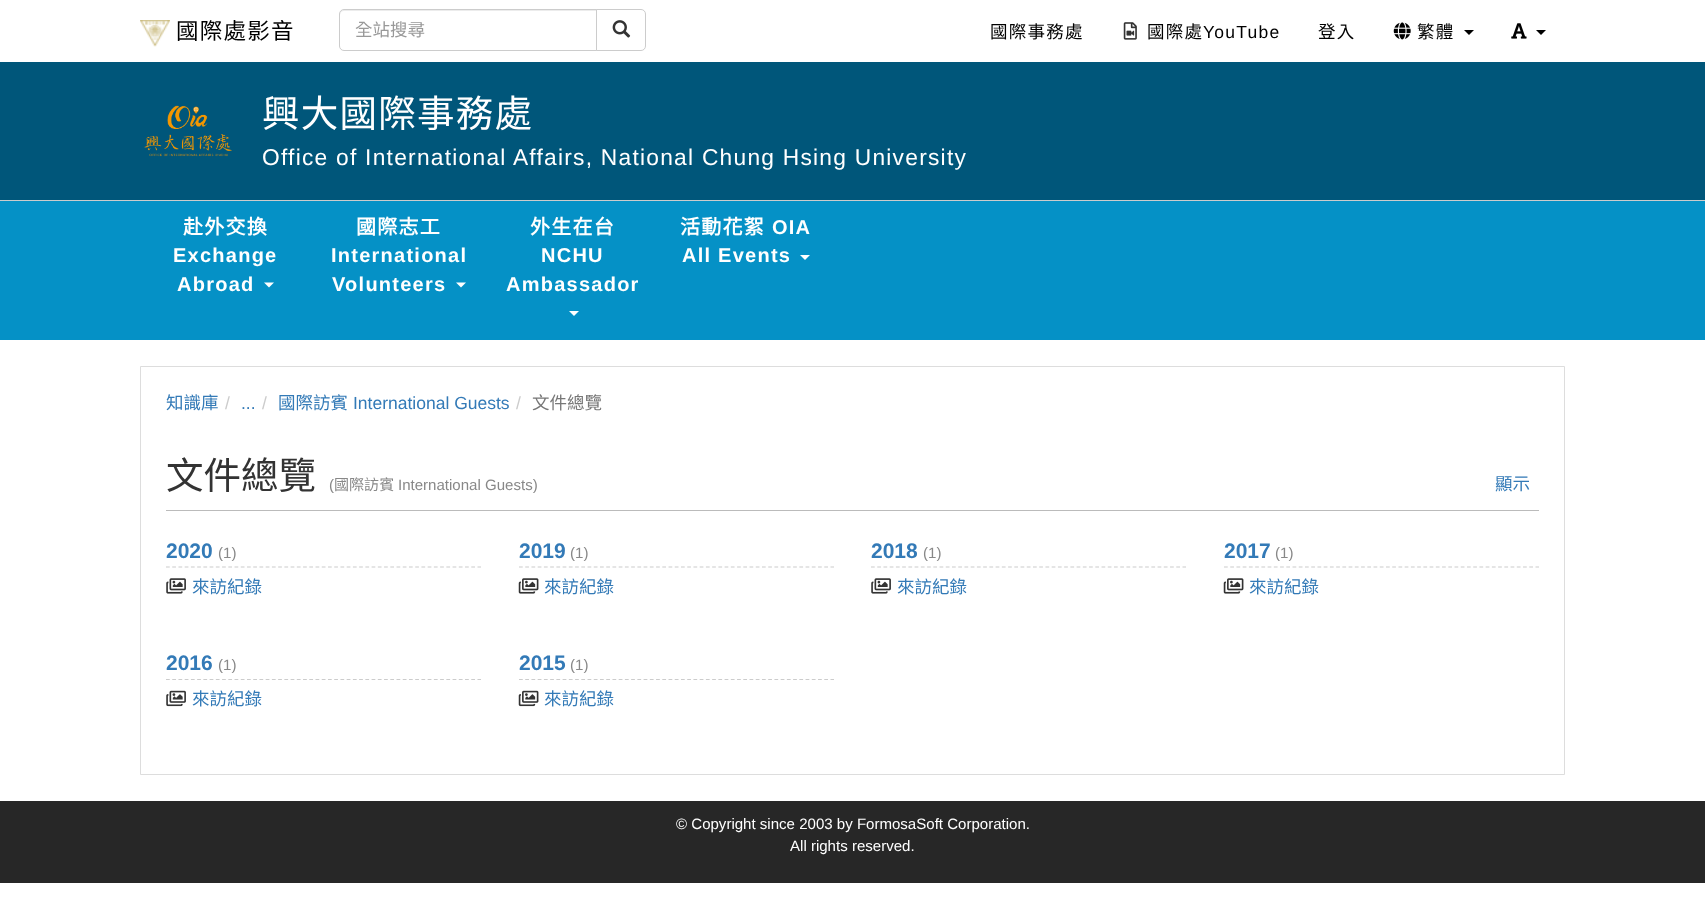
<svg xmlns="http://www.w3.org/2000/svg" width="1705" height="905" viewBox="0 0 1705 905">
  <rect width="100%" height="100%" fill="#fff"/>
  <image x="140" y="20" width="30" height="27" href="img/1.png"/>
  <path d="M344 11H596V10H344C342 10 340 12 340 14V15C340 13 342 11 344 11Z" fill="#ececec"/>
  <path d="M344 9.5H597.5V50.5H344C341.5 50.5 339.5 48.5 339.5 46V14C339.5 11.5 341.5 9.5 344 9.5Z" fill="none" stroke="#ccc"/>
  <path d="M596.5 9.5H641C643.5 9.5 645.5 11.5 645.5 14V46C645.5 48.5 643.5 50.5 641 50.5H596.5Z" fill="#fff" stroke="#ccc"/>
  <image x="612" y="20" width="19" height="18" href="img/2.png"/>
  <image x="1123" y="22" width="14" height="18" href="img/3.png"/>
  <image x="1393" y="22" width="18" height="18" href="img/4.png"/>
  <path d="M1464 30H1474L1469 35Z" fill="#000"/>
  <image x="1511" y="23" width="16" height="16" href="img/5.png"/>
  <path d="M1536 30H1546L1541 35Z" fill="#000"/>
  <path d="M0 62h1705v138H0z" fill="#00567a"/>
  <path d="M0 200h1705v1H0z" fill="#ccc"/>
  <image x="144" y="105" width="88" height="52" href="img/6.png"/>
  <path d="M0 201h1705v139H0z" fill="#0591c6"/>
  <path d="M264 282.5H274L269 287.5Z" fill="#fff"/>
  <path d="M456 282.5H466L461 287.5Z" fill="#fff"/>
  <path d="M569 311H579L574 316Z" fill="#fff"/>
  <path d="M800 255H810L805 260Z" fill="#fff"/>
  <path d="M140.5 366.5h1424v408H140.5z" fill="none" stroke="#ddd"/>
  <path d="M166 510h1373v1H166z" fill="#bbb"/>
  <path d="M166 567H481" fill="none" stroke="#ccc" stroke-width="1.2" stroke-dasharray="3.75 2.48"/>
  <image x="166" y="578" width="20" height="16" href="img/7.png"/>
  <path d="M519 567H834" fill="none" stroke="#ccc" stroke-width="1.2" stroke-dasharray="3.75 2.48"/>
  <image x="518" y="578" width="21" height="16" href="img/8.png"/>
  <path d="M871 567H1186" fill="none" stroke="#ccc" stroke-width="1.2" stroke-dasharray="3.75 2.48"/>
  <image x="871" y="578" width="20" height="16" href="img/7.png"/>
  <path d="M1224 567H1539" fill="none" stroke="#ccc" stroke-width="1.2" stroke-dasharray="3.75 2.48"/>
  <image x="1223" y="578" width="21" height="16" href="img/8.png"/>
  <path d="M166 679.5H481" fill="none" stroke="#ccc" stroke-width="1.2" stroke-dasharray="3.75 2.48"/>
  <image x="166" y="690" width="20" height="17" href="img/9.png"/>
  <path d="M519 679.5H834" fill="none" stroke="#ccc" stroke-width="1.2" stroke-dasharray="3.75 2.48"/>
  <image x="518" y="690" width="21" height="17" href="img/10.png"/>
  <path d="M0 801h1705v82H0z" fill="#272727"/>
  <text x="176" y="39" font-family="Noto Sans CJK TC" font-size="22.5" letter-spacing="1.25" fill="#000">國際處影音</text>
  <text x="355" y="36" font-family="Noto Sans CJK TC" font-size="17.5" fill="#999">全站搜尋</text>
  <g font-family="Noto Sans CJK TC" font-size="17.5" letter-spacing="1.25" fill="#000">
    <text x="990" y="38">國際事務處</text>
    <text x="1147" y="38">國際處</text>
  </g>
  <text x="1203" y="38" font-family="Liberation Sans" font-size="17.5" letter-spacing="1.25" fill="#000">YouTube</text>
  <g font-family="Noto Sans CJK TC" font-size="17.5" letter-spacing="1.25" fill="#000">
    <text x="1318" y="38">登入</text>
    <text x="1417" y="38">繁體</text>
  </g>
  <text x="262" y="127" font-family="Noto Sans CJK TC" font-size="37.5" letter-spacing="1.25" fill="#fff">興大國際事務處</text>
  <text x="262" y="165" font-family="Liberation Sans" font-size="22.75" letter-spacing="1.25" fill="#fff">Office of International Affairs, National Chung Hsing University</text>
  <text x="183" y="234" font-family="Noto Sans CJK TC" font-size="20" font-weight="bold" letter-spacing="1.25" fill="#fff">赴外交換</text>
  <g font-family="Liberation Sans" font-size="20" font-weight="bold" letter-spacing="1.25" fill="#fff">
    <text x="173" y="262">Exchange</text>
    <text x="177" y="291">Abroad</text>
  </g>
  <text x="356" y="234" font-family="Noto Sans CJK TC" font-size="20" font-weight="bold" letter-spacing="1.25" fill="#fff">國際志工</text>
  <g font-family="Liberation Sans" font-size="20" font-weight="bold" letter-spacing="1.25" fill="#fff">
    <text x="331" y="262">International</text>
    <text x="332" y="291">Volunteers</text>
  </g>
  <text x="530" y="234" font-family="Noto Sans CJK TC" font-size="20" font-weight="bold" letter-spacing="1.25" fill="#fff">外生在台</text>
  <g font-family="Liberation Sans" font-size="20" font-weight="bold" letter-spacing="1.25" fill="#fff">
    <text x="541" y="262">NCHU</text>
    <text x="506" y="291">Ambassador</text>
  </g>
  <text x="680" y="234" font-family="Noto Sans CJK TC" font-size="20" font-weight="bold" letter-spacing="1.25" fill="#fff">活動花絮</text>
  <g font-family="Liberation Sans" font-size="20" font-weight="bold" letter-spacing="1.25" fill="#fff">
    <text x="772" y="234">OIA</text>
    <text x="682" y="262">All Events</text>
  </g>
  <text x="166" y="409" font-family="Noto Sans CJK TC" font-size="17.5" fill="#337ab7">知識庫</text>
  <text x="225" y="409" font-family="Liberation Sans" font-size="17.5" fill="#ccc">/</text>
  <text x="241" y="409" font-family="Liberation Sans" font-size="17.5" fill="#337ab7">...</text>
  <text x="262" y="409" font-family="Liberation Sans" font-size="17.5" fill="#ccc">/</text>
  <text x="278" y="409" font-family="Noto Sans CJK TC" font-size="17.5" fill="#337ab7">國際訪賓</text>
  <text x="353" y="409" font-family="Liberation Sans" font-size="17.5" fill="#337ab7">International Guests</text>
  <text x="516" y="409" font-family="Liberation Sans" font-size="17.5" fill="#ccc">/</text>
  <text x="532" y="409" font-family="Noto Sans CJK TC" font-size="17.5" fill="#777">文件總覽</text>
  <text x="166" y="489" font-family="Noto Sans CJK TC" font-size="37.5" fill="#333">文件總覽</text>
  <text x="329" y="490" font-family="Liberation Sans" font-size="15.05" fill="#888">(</text>
  <text x="334" y="490" font-family="Noto Sans CJK TC" font-size="15.05" fill="#888">國際訪賓</text>
  <text x="398" y="490" font-family="Liberation Sans" font-size="15.05" fill="#888">International Guests)</text>
  <text x="1495" y="490" font-family="Noto Sans CJK TC" font-size="17.5" fill="#337ab7">顯示</text>
  <text x="166" y="558" font-family="Liberation Sans" font-size="21" font-weight="bold" fill="#337ab7">2020</text>
  <text x="218" y="558" font-family="Liberation Sans" font-size="15.05" fill="#888">(1)</text>
  <text x="192" y="593" font-family="Noto Sans CJK TC" font-size="17.5" fill="#337ab7">來訪紀錄</text>
  <text x="519" y="558" font-family="Liberation Sans" font-size="21" font-weight="bold" fill="#337ab7">2019</text>
  <text x="570" y="558" font-family="Liberation Sans" font-size="15.05" fill="#888">(1)</text>
  <text x="544" y="593" font-family="Noto Sans CJK TC" font-size="17.5" fill="#337ab7">來訪紀錄</text>
  <text x="871" y="558" font-family="Liberation Sans" font-size="21" font-weight="bold" fill="#337ab7">2018</text>
  <text x="923" y="558" font-family="Liberation Sans" font-size="15.05" fill="#888">(1)</text>
  <text x="897" y="593" font-family="Noto Sans CJK TC" font-size="17.5" fill="#337ab7">來訪紀錄</text>
  <text x="1224" y="558" font-family="Liberation Sans" font-size="21" font-weight="bold" fill="#337ab7">2017</text>
  <text x="1275" y="558" font-family="Liberation Sans" font-size="15.05" fill="#888">(1)</text>
  <text x="1249" y="593" font-family="Noto Sans CJK TC" font-size="17.5" fill="#337ab7">來訪紀錄</text>
  <text x="166" y="670" font-family="Liberation Sans" font-size="21" font-weight="bold" fill="#337ab7">2016</text>
  <text x="218" y="670" font-family="Liberation Sans" font-size="15.05" fill="#888">(1)</text>
  <text x="192" y="705" font-family="Noto Sans CJK TC" font-size="17.5" fill="#337ab7">來訪紀錄</text>
  <text x="519" y="670" font-family="Liberation Sans" font-size="21" font-weight="bold" fill="#337ab7">2015</text>
  <text x="570" y="670" font-family="Liberation Sans" font-size="15.05" fill="#888">(1)</text>
  <text x="544" y="705" font-family="Noto Sans CJK TC" font-size="17.5" fill="#337ab7">來訪紀錄</text>
  <g font-family="Liberation Sans" font-size="15.05" fill="#fff">
    <text x="676" y="829">© Copyright since 2003 by FormosaSoft Corporation.</text>
    <text x="790" y="851">All rights reserved.</text>
  </g>
</svg>
